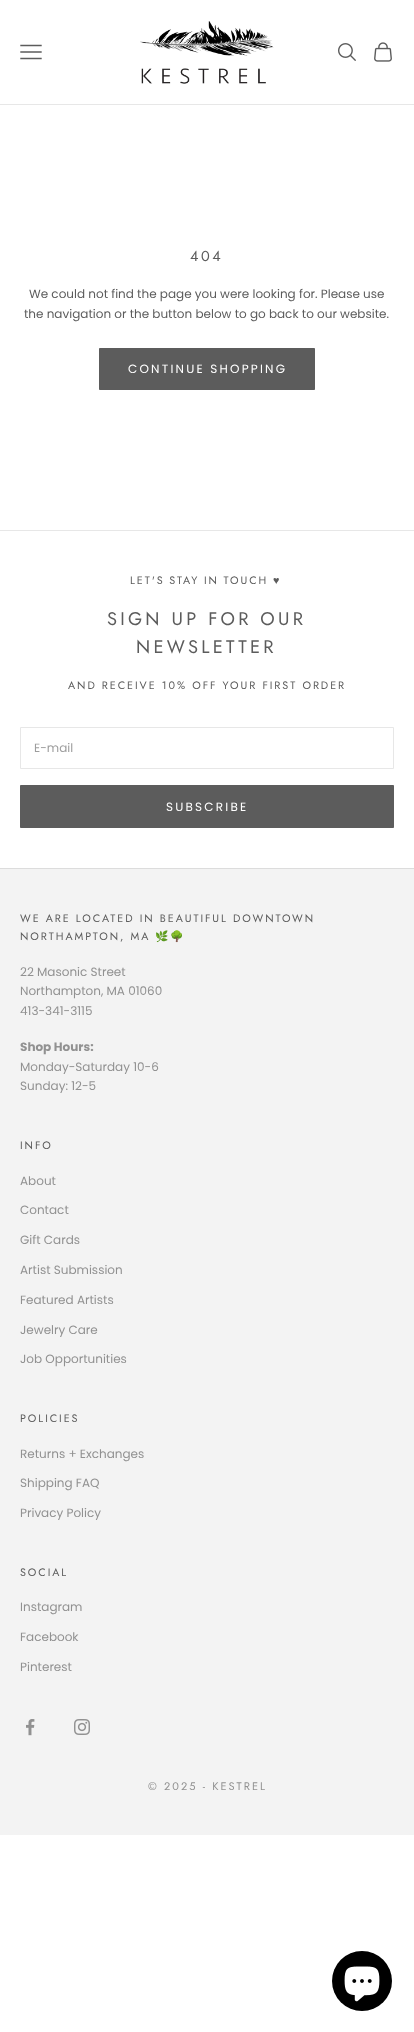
<svg xmlns="http://www.w3.org/2000/svg" width="414" height="2032" viewBox="0 0 414 2032">
  <rect width="100%" height="100%" fill="#fff"/>
  <path d="M0 104h414v1H0z" fill="#e7e7e7"/>
  <path d="M21 58.5H41M21 52H41M21 45.5H41" fill="none" stroke="#5c5c5c" stroke-width="1.4" stroke-linecap="square"/>
  <image x="140" y="21" width="134" height="63" href="img/1.png"/>
  <image x="338" y="43" width="18" height="18" href="img/2.png"/>
  <image x="374" y="42" width="18" height="20" href="img/3.png"/>
  <path d="M99.5 348.5h215v41H99.5z" fill="#5c5c5c" stroke="#5c5c5c"/>
  <path d="M0 530h414v1H0z" fill="#e7e7e7"/>
  <path d="M20.5 727.5h373v41H20.5z" fill="none" stroke="#e7e7e7"/>
  <path d="M20.5 785.5h373v42H20.5z" fill="#5c5c5c" stroke="#5c5c5c"/>
  <path d="M0 869h414v966H0z" fill="#f3f3f3"/>
  <path d="M0 868h414v1H0z" fill="#dcdcdc"/>
  <image x="26" y="1719" width="9" height="17" href="img/4.png"/>
  <image x="74" y="1719" width="16" height="16" href="img/5.png"/>
  <circle cx="362" cy="1981" r="30" fill="#000"/>
  <image x="344" y="1966" width="36" height="36" href="img/6.png"/>
  <text x="190" y="261" font-family="Jost" font-size="14.5" letter-spacing="2.5" fill="#5c5c5c">404</text>
  <g font-family="Poppins" font-size="12" fill="#5c5c5c">
    <text x="29" y="298">We could not find the page you were looking for. Please use</text>
    <text x="24" y="318">the navigation or the button below to go back to our website.</text>
  </g>
  <text x="128" y="373" font-family="Poppins" font-size="12" letter-spacing="2.2" fill="#fff">CONTINUE SHOPPING</text>
  <text x="130" y="584" word-spacing="-0.5" font-family="Jost" font-size="10.8" letter-spacing="1.95" fill="#5c5c5c">LET'S STAY IN TOUCH</text>
  <text x="273" y="584" font-family="Liberation Sans" font-size="10.8" letter-spacing="1.95" fill="#5c5c5c">♥︎</text>
  <g font-family="Jost" font-size="18.25" letter-spacing="3.25" fill="#5c5c5c">
    <text x="107" y="625">SIGN UP FOR OUR</text>
    <text x="136" y="653">NEWSLETTER</text>
  </g>
  <text x="68" y="689" font-family="Jost" font-size="10.8" letter-spacing="1.95" fill="#5c5c5c">AND RECEIVE 10% OFF YOUR FIRST ORDER</text>
  <text x="34" y="752" font-family="Poppins" font-size="12" fill="#9d9d9d">E-mail</text>
  <text x="166" y="811" font-family="Poppins" font-size="12" letter-spacing="2.2" fill="#fff">SUBSCRIBE</text>
  <g font-family="Jost" font-size="10.8" letter-spacing="1.95" fill="#5c5c5c">
    <text x="20" y="922">WE ARE LOCATED IN BEAUTIFUL DOWNTOWN</text>
    <text x="20" y="940">NORTHAMPTON, MA</text>
  </g>
  <text x="155" y="940" font-family="Noto Color Emoji" font-size="10.8" letter-spacing="1.95" fill="#5c5c5c">🌿🌳</text>
  <g font-family="Poppins" font-size="12" fill="#919191">
    <text x="20" y="976">22 Masonic Street</text>
    <text x="20" y="995">Northampton, MA 01060</text>
    <text x="20" y="1015">413-341-3115</text>
  </g>
  <text x="20" y="1051" font-family="Poppins" font-size="12" font-weight="bold" fill="#919191">Shop Hours:</text>
  <g font-family="Poppins" font-size="12" fill="#919191">
    <text x="20" y="1071">Monday-Saturday 10-6</text>
    <text x="20" y="1090">Sunday: 12-5</text>
  </g>
  <text x="20" y="1149" font-family="Jost" font-size="10.8" letter-spacing="1.95" fill="#5c5c5c">INFO</text>
  <g font-family="Poppins" font-size="12" fill="#919191">
    <text x="20" y="1185">About</text>
    <text x="20" y="1214">Contact</text>
    <text x="20" y="1244">Gift Cards</text>
    <text x="20" y="1274">Artist Submission</text>
    <text x="20" y="1304">Featured Artists</text>
    <text x="20" y="1334">Jewelry Care</text>
    <text x="20" y="1363">Job Opportunities</text>
  </g>
  <text x="20" y="1422" font-family="Jost" font-size="10.8" letter-spacing="1.95" fill="#5c5c5c">POLICIES</text>
  <g font-family="Poppins" font-size="12" fill="#919191">
    <text x="20" y="1458">Returns + Exchanges</text>
    <text x="20" y="1487">Shipping FAQ</text>
    <text x="20" y="1517">Privacy Policy</text>
  </g>
  <text x="20" y="1576" font-family="Jost" font-size="10.8" letter-spacing="1.95" fill="#5c5c5c">SOCIAL</text>
  <g font-family="Poppins" font-size="12" fill="#919191">
    <text x="20" y="1611">Instagram</text>
    <text x="20" y="1641">Facebook</text>
    <text x="20" y="1671">Pinterest</text>
  </g>
  <text x="148" y="1790" font-family="Jost" font-size="11" letter-spacing="2" fill="#919191">© 2025 - KESTREL</text>
</svg>
